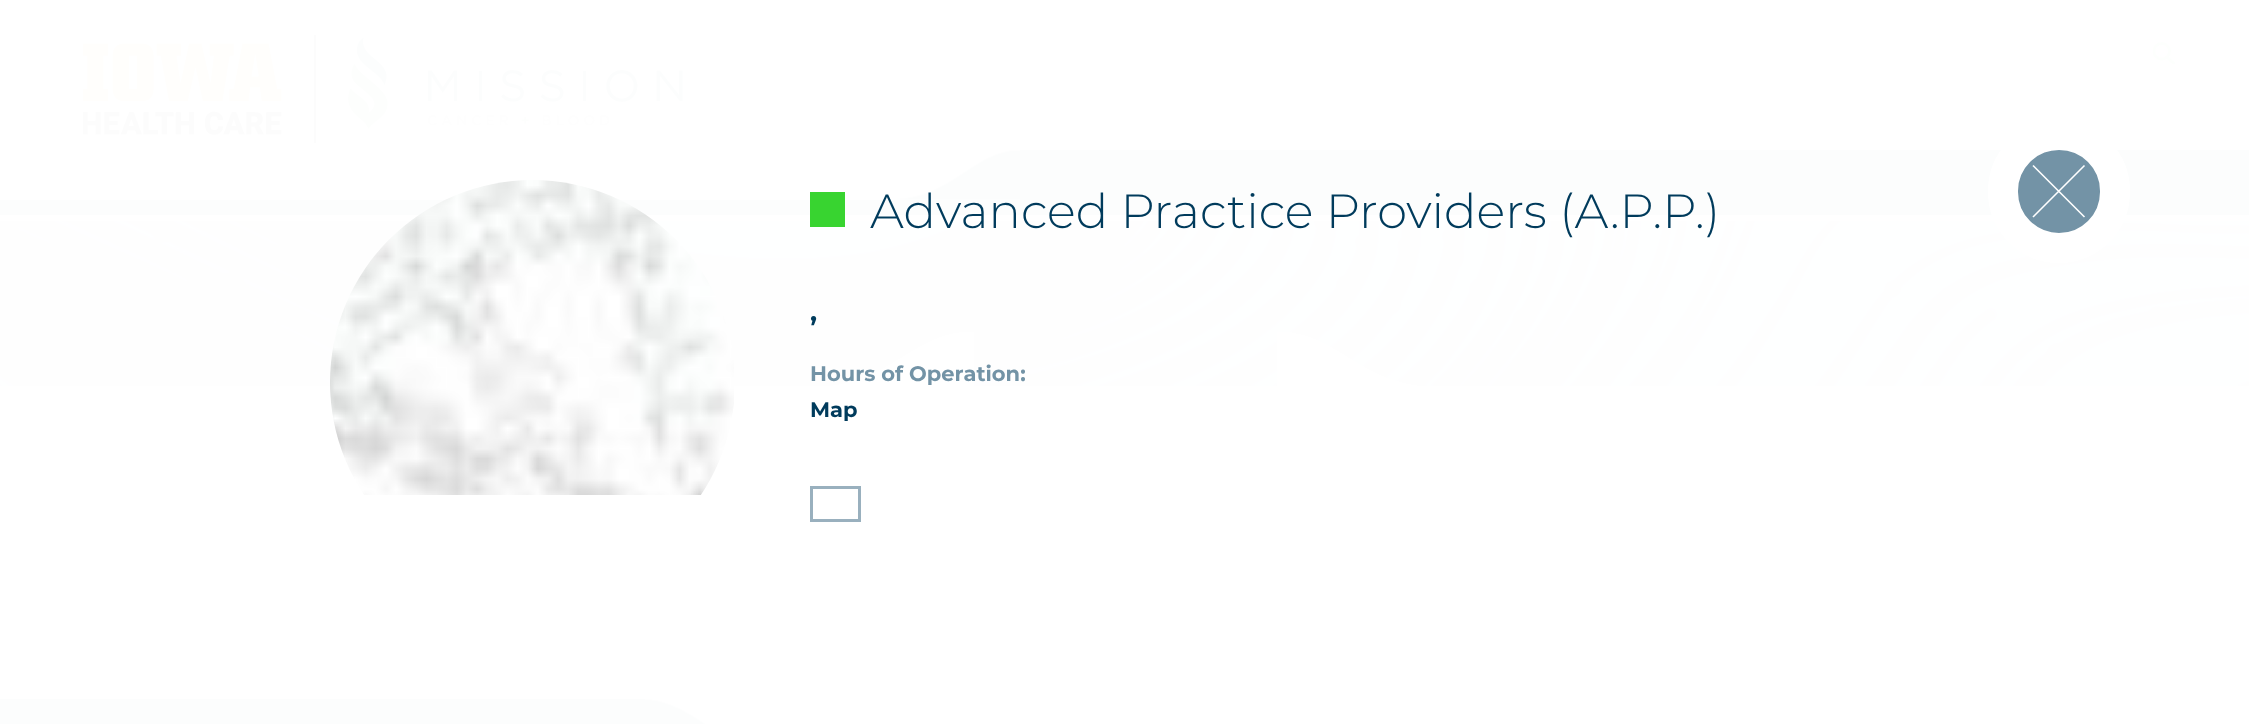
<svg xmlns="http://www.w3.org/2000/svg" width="2249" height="724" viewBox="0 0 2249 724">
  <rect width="100%" height="100%" fill="#fff"/>
  <image x="83" y="35" width="600" height="108" href="img/1.png"/>
  <image x="2153" y="42" width="22" height="23" href="img/2.png"/>
  <image x="891" y="150" width="129" height="50" href="img/3.png"/>
  <path d="M0 200h1020v15H0z" fill="#fcfdfd"/>
  <path d="M1020 150h1229v65H1020z" fill="#fcfdfd"/>
  <image x="0" y="221" width="2249" height="165" href="img/5.png"/>
  <image x="330" y="180" width="404" height="315" href="img/4.png"/>
  <path d="M810 192h35v35H810z" fill="#38d430"/>
  <path d="M811.5 487.5h48v33H811.5z" fill="none" stroke="#99b0be" stroke-width="3"/>
  <rect x="2003" y="135" width="112" height="113" rx="56" fill="#7393a6" stroke="#fff" stroke-width="30"/>
  <path d="M2033 165.5L2084.5 217M2084.5 165.5L2033 217" fill="none" stroke="#fff" stroke-width="1.6"/>
  <image x="830" y="332" width="144" height="54" href="img/6.png"/>
  <image x="1277" y="332" width="144" height="54" href="img/7.png"/>
  <path d="M0 699h645v25H0z" fill="#fcfdfd"/>
  <image x="645" y="699" width="61" height="25" href="img/8.png"/>
  <text x="870" y="228" font-family="Montserrat" font-size="48" font-weight="300" fill="#003b5c">Advanced Practice Providers (A.P.P.)</text>
  <text x="810" y="321" font-family="Montserrat" font-size="27" font-weight="bold" fill="#003b5c">,</text>
  <text x="810" y="381" font-family="Montserrat" font-size="21" font-weight="bold" fill="#7393a6">Hours of Operation:</text>
  <text x="810" y="417" font-family="Montserrat" font-size="21" font-weight="bold" fill="#003b5c">Map</text>
</svg>
